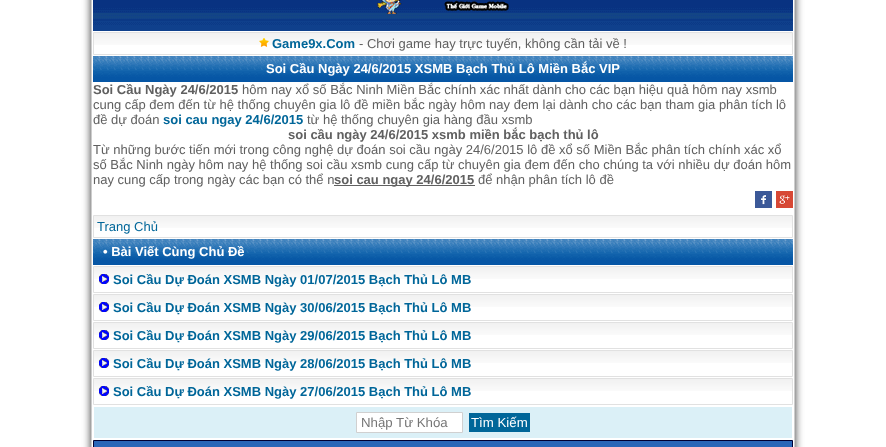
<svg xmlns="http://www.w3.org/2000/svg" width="886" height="447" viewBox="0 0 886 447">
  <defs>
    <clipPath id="clip1"><path d="M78 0H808V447H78ZM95-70H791C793-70 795-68 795-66V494C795 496 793 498 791 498H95C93 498 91 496 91 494V-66C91-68 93-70 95-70Z" clip-rule="evenodd"/></clipPath>
  </defs>
  <rect width="100%" height="100%" fill="#fff"/>
  <g clip-path="url(#clip1)">
    <rect x="91" y="-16" width="704" height="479" rx="4" fill="#343434" filter="blur(4px)"/>
  </g>
  <path d="M91.5 -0.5h703v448H91.5z" fill="none" stroke="#cdcdcd"/>
  <image x="93" y="0" width="700" height="31" href="img/1.png"/>
  <image x="377" y="0" width="133" height="14" href="img/2.png"/>
  <image x="94" y="33" width="698" height="12" href="img/3.png"/>
  <path d="M93.5 32.5h699v22H93.5z" fill="none" stroke="#e1e1e1"/>
  <image x="259" y="38" width="10" height="9" href="img/4.png"/>
  <image x="93" y="56" width="700" height="26" href="img/5.png"/>
  <path d="M334 185h141v1H334z" fill="#606060"/>
  <image x="755" y="191" width="17" height="17" href="img/6.png"/>
  <image x="776" y="191" width="17" height="17" href="img/7.png"/>
  <image x="94" y="216" width="698" height="12" href="img/3.png"/>
  <path d="M93.5 215.5h699v22H93.5z" fill="none" stroke="#e1e1e1"/>
  <image x="93" y="239" width="700" height="26" href="img/5.png"/>
  <image x="94" y="267" width="698" height="12" href="img/3.png"/>
  <path d="M93.5 266.5h699v26H93.5z" fill="none" stroke="#e1e1e1"/>
  <image x="99" y="274" width="10" height="10" href="img/8.png"/>
  <image x="94" y="295" width="698" height="12" href="img/3.png"/>
  <path d="M93.5 294.5h699v26H93.5z" fill="none" stroke="#e1e1e1"/>
  <image x="99" y="302" width="10" height="10" href="img/8.png"/>
  <image x="94" y="323" width="698" height="12" href="img/3.png"/>
  <path d="M93.5 322.5h699v26H93.5z" fill="none" stroke="#e1e1e1"/>
  <image x="99" y="330" width="10" height="10" href="img/8.png"/>
  <image x="94" y="351" width="698" height="12" href="img/3.png"/>
  <path d="M93.5 350.5h699v26H93.5z" fill="none" stroke="#e1e1e1"/>
  <image x="99" y="358" width="10" height="10" href="img/8.png"/>
  <image x="94" y="379" width="698" height="12" href="img/3.png"/>
  <path d="M93.5 378.5h699v26H93.5z" fill="none" stroke="#e1e1e1"/>
  <image x="99" y="386" width="10" height="10" href="img/8.png"/>
  <path d="M94 407h698v31H94z" fill="#dbf0f7"/>
  <path d="M356.5 412.5h106v20H356.5z" fill="#fff" stroke="#d0d0d0"/>
  <path d="M469 413h61v19H469z" fill="#069"/>
  <path d="M93.5 440.5h699v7H93.5z" fill="#2966b8" stroke="#003"/>
  <text x="272" y="48" font-family="Liberation Sans" font-size="13" font-weight="bold" fill="#069">Game9x.Com</text>
  <text x="359" y="48" font-family="Liberation Sans" font-size="13" fill="#606060">- Chơi game hay trực tuyến, không cần tải về !</text>
  <text x="266" y="73" font-family="Liberation Sans" font-size="13" font-weight="bold" fill="#fff">Soi Cầu Ngày 24/6/2015 XSMB Bạch Thủ Lô Miền Bắc VIP</text>
  <text x="93" y="94" font-family="Liberation Sans" font-size="13" font-weight="bold" fill="#606060">Soi Cầu Ngày 24/6/2015</text>
  <g font-family="Liberation Sans" font-size="13" fill="#606060">
    <text x="242" y="94">hôm nay xổ số Bắc Ninh Miền Bắc chính xác nhất dành cho các bạn hiệu quả hôm nay xsmb</text>
    <text x="93" y="109">cung cấp đem đến từ hệ thống chuyên gia lô đề miền bắc ngày hôm nay đem lại dành cho các bạn tham gia phân tích lô</text>
    <text x="93" y="124">đề dự đoán</text>
  </g>
  <text x="163" y="124" font-family="Liberation Sans" font-size="13" font-weight="bold" fill="#069">soi cau ngay 24/6/2015</text>
  <text x="307" y="124" font-family="Liberation Sans" font-size="13" fill="#606060">từ hệ thống chuyên gia hàng đầu xsmb</text>
  <text x="288" y="139" font-family="Liberation Sans" font-size="13" font-weight="bold" fill="#606060">soi cầu ngày 24/6/2015 xsmb miền bắc bạch thủ lô</text>
  <g font-family="Liberation Sans" font-size="13" fill="#606060">
    <text x="93" y="154">Từ những bước tiến mới trong công nghệ dự đoán soi cầu ngày 24/6/2015 lô đề xổ số Miền Bắc phân tích chính xác xổ</text>
    <text x="93" y="169">số Bắc Ninh ngày hôm nay hệ thống soi cầu xsmb cung cấp từ chuyên gia đem đến cho chúng ta với nhiều dự đoán hôm</text>
    <text x="93" y="184">nay cung cấp trong ngày các bạn có thể n</text>
  </g>
  <text x="334" y="184" font-family="Liberation Sans" font-size="13" font-weight="bold" fill="#606060">soi cau ngay 24/6/2015</text>
  <text x="478" y="184" font-family="Liberation Sans" font-size="13" fill="#606060">để nhận phân tích lô đề</text>
  <text x="97" y="231" font-family="Liberation Sans" font-size="13" fill="#069">Trang Chủ</text>
  <text x="103" y="256" font-family="Liberation Sans" font-size="13" font-weight="bold" fill="#fff">• Bài Viết Cùng Chủ Đề</text>
  <g font-family="Liberation Sans" font-size="13" font-weight="bold" fill="#069">
    <text x="113" y="284">Soi Cầu Dự Đoán XSMB Ngày 01/07/2015 Bạch Thủ Lô MB</text>
    <text x="113" y="312">Soi Cầu Dự Đoán XSMB Ngày 30/06/2015 Bạch Thủ Lô MB</text>
    <text x="113" y="340">Soi Cầu Dự Đoán XSMB Ngày 29/06/2015 Bạch Thủ Lô MB</text>
    <text x="113" y="368">Soi Cầu Dự Đoán XSMB Ngày 28/06/2015 Bạch Thủ Lô MB</text>
    <text x="113" y="396">Soi Cầu Dự Đoán XSMB Ngày 27/06/2015 Bạch Thủ Lô MB</text>
  </g>
  <text x="361" y="427" font-family="Liberation Sans" font-size="13.25" fill="#757575">Nhập Từ Khóa</text>
  <text x="471" y="427" font-family="Liberation Sans" font-size="13.25" fill="#fff">Tìm Kiếm</text>
</svg>
